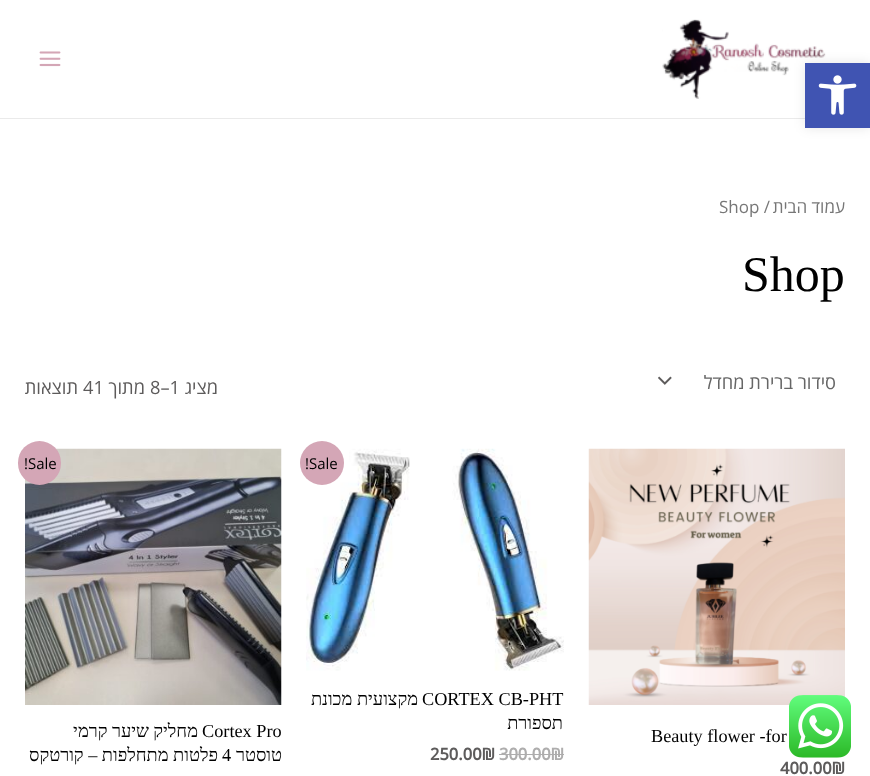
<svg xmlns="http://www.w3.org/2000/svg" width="870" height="776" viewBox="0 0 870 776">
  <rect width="100%" height="100%" fill="#fff"/>
  <path d="M0 118h805v1H0z" fill="#eaeaea"/>
  <image x="662" y="19" width="164" height="80" href="img/2.png"/>
  <path d="M805 63h65v65H805z" fill="#0000001a" filter="blur(6px)"/>
  <path d="M805 63h65v65H805z" fill="#4054b2"/>
  <image x="818" y="75" width="39" height="40" href="img/1.png"/>
  <image x="39" y="51" width="22" height="16" href="img/3.png"/>
  <image x="658" y="376" width="14" height="9" href="img/4.png"/>
  <image x="588" y="448" width="257" height="257" href="img/5.png"/>
  <image x="306" y="448" width="258" height="223" href="img/6.png"/>
  <circle cx="322" cy="463" r="22" fill="#d4a6b6"/>
  <path d="M499 754h65v1H499z" fill="#aeadad"/>
  <image x="25" y="448" width="257" height="257" href="img/7.png"/>
  <rect x="18" y="441" width="43" height="44" rx="21.5" fill="#d4a6b6"/>
  <image x="789" y="695" width="62" height="63" href="img/8.png"/>
  <text x="845" y="213" font-family="Open Sans" font-size="17" direction="rtl" fill="#777">עמוד הבית</text>
  <text x="719" y="213" font-family="Open Sans" font-size="17" fill="#777">Shop /</text>
  <text x="742" y="291" font-family="Liberation Serif" font-size="50" fill="#000">Shop</text>
  <text x="836" y="389" font-family="Open Sans" font-size="18.25" direction="rtl" fill="#666">סידור ברירת מחדל</text>
  <text x="218" y="394" font-family="Open Sans" font-size="18.25" direction="rtl" fill="#5d5b5b">מציג</text>
  <text x="150" y="394" font-family="Open Sans" font-size="18.25" fill="#5d5b5b">8–1</text>
  <text x="145" y="394" font-family="Open Sans" font-size="18.25" direction="rtl" fill="#5d5b5b">מתוך</text>
  <text x="83" y="394" font-family="Open Sans" font-size="18.25" fill="#5d5b5b">41</text>
  <text x="78" y="394" font-family="Open Sans" font-size="18.25" direction="rtl" fill="#5d5b5b">תוצאות</text>
  <text x="651" y="742" font-family="Liberation Serif" font-size="18.25" fill="#000">Beauty flower -for</text>
  <text x="780" y="774" font-family="Open Sans" font-size="16.5" font-weight="bold" fill="#5d5b5b">400.00₪</text>
  <text x="305" y="469" font-family="Open Sans" font-size="15" fill="#000">!Sale</text>
  <text x="422" y="705" font-family="Liberation Serif" font-size="18.25" fill="#000">CORTEX CB-PHT</text>
  <g font-family="Liberation Serif" font-size="18.25" direction="rtl" fill="#000">
    <text x="418" y="705">מקצועית מכונת</text>
    <text x="563" y="729">תספורת</text>
  </g>
  <text x="499" y="760" font-family="Open Sans" font-size="16.5" font-weight="bold" fill="#aeadad">300.00₪</text>
  <text x="430" y="760" font-family="Open Sans" font-size="16.5" font-weight="bold" fill="#5d5b5b">250.00₪</text>
  <text x="24" y="469" font-family="Open Sans" font-size="15" fill="#000">!Sale</text>
  <text x="202" y="737" font-family="Liberation Serif" font-size="18.25" fill="#000">Cortex Pro</text>
  <g font-family="Liberation Serif" font-size="18.25" direction="rtl" fill="#000">
    <text x="198" y="737">מחליק</text>
    <text x="149" y="737">שיער קרמי</text>
    <text x="282" y="761">טוסטר</text>
  </g>
  <text x="222" y="761" font-family="Liberation Serif" font-size="18.25" fill="#000">4</text>
  <text x="218" y="761" font-family="Liberation Serif" font-size="18.25" direction="rtl" fill="#000">פלטות מתחלפות – קורטקס</text>
</svg>
